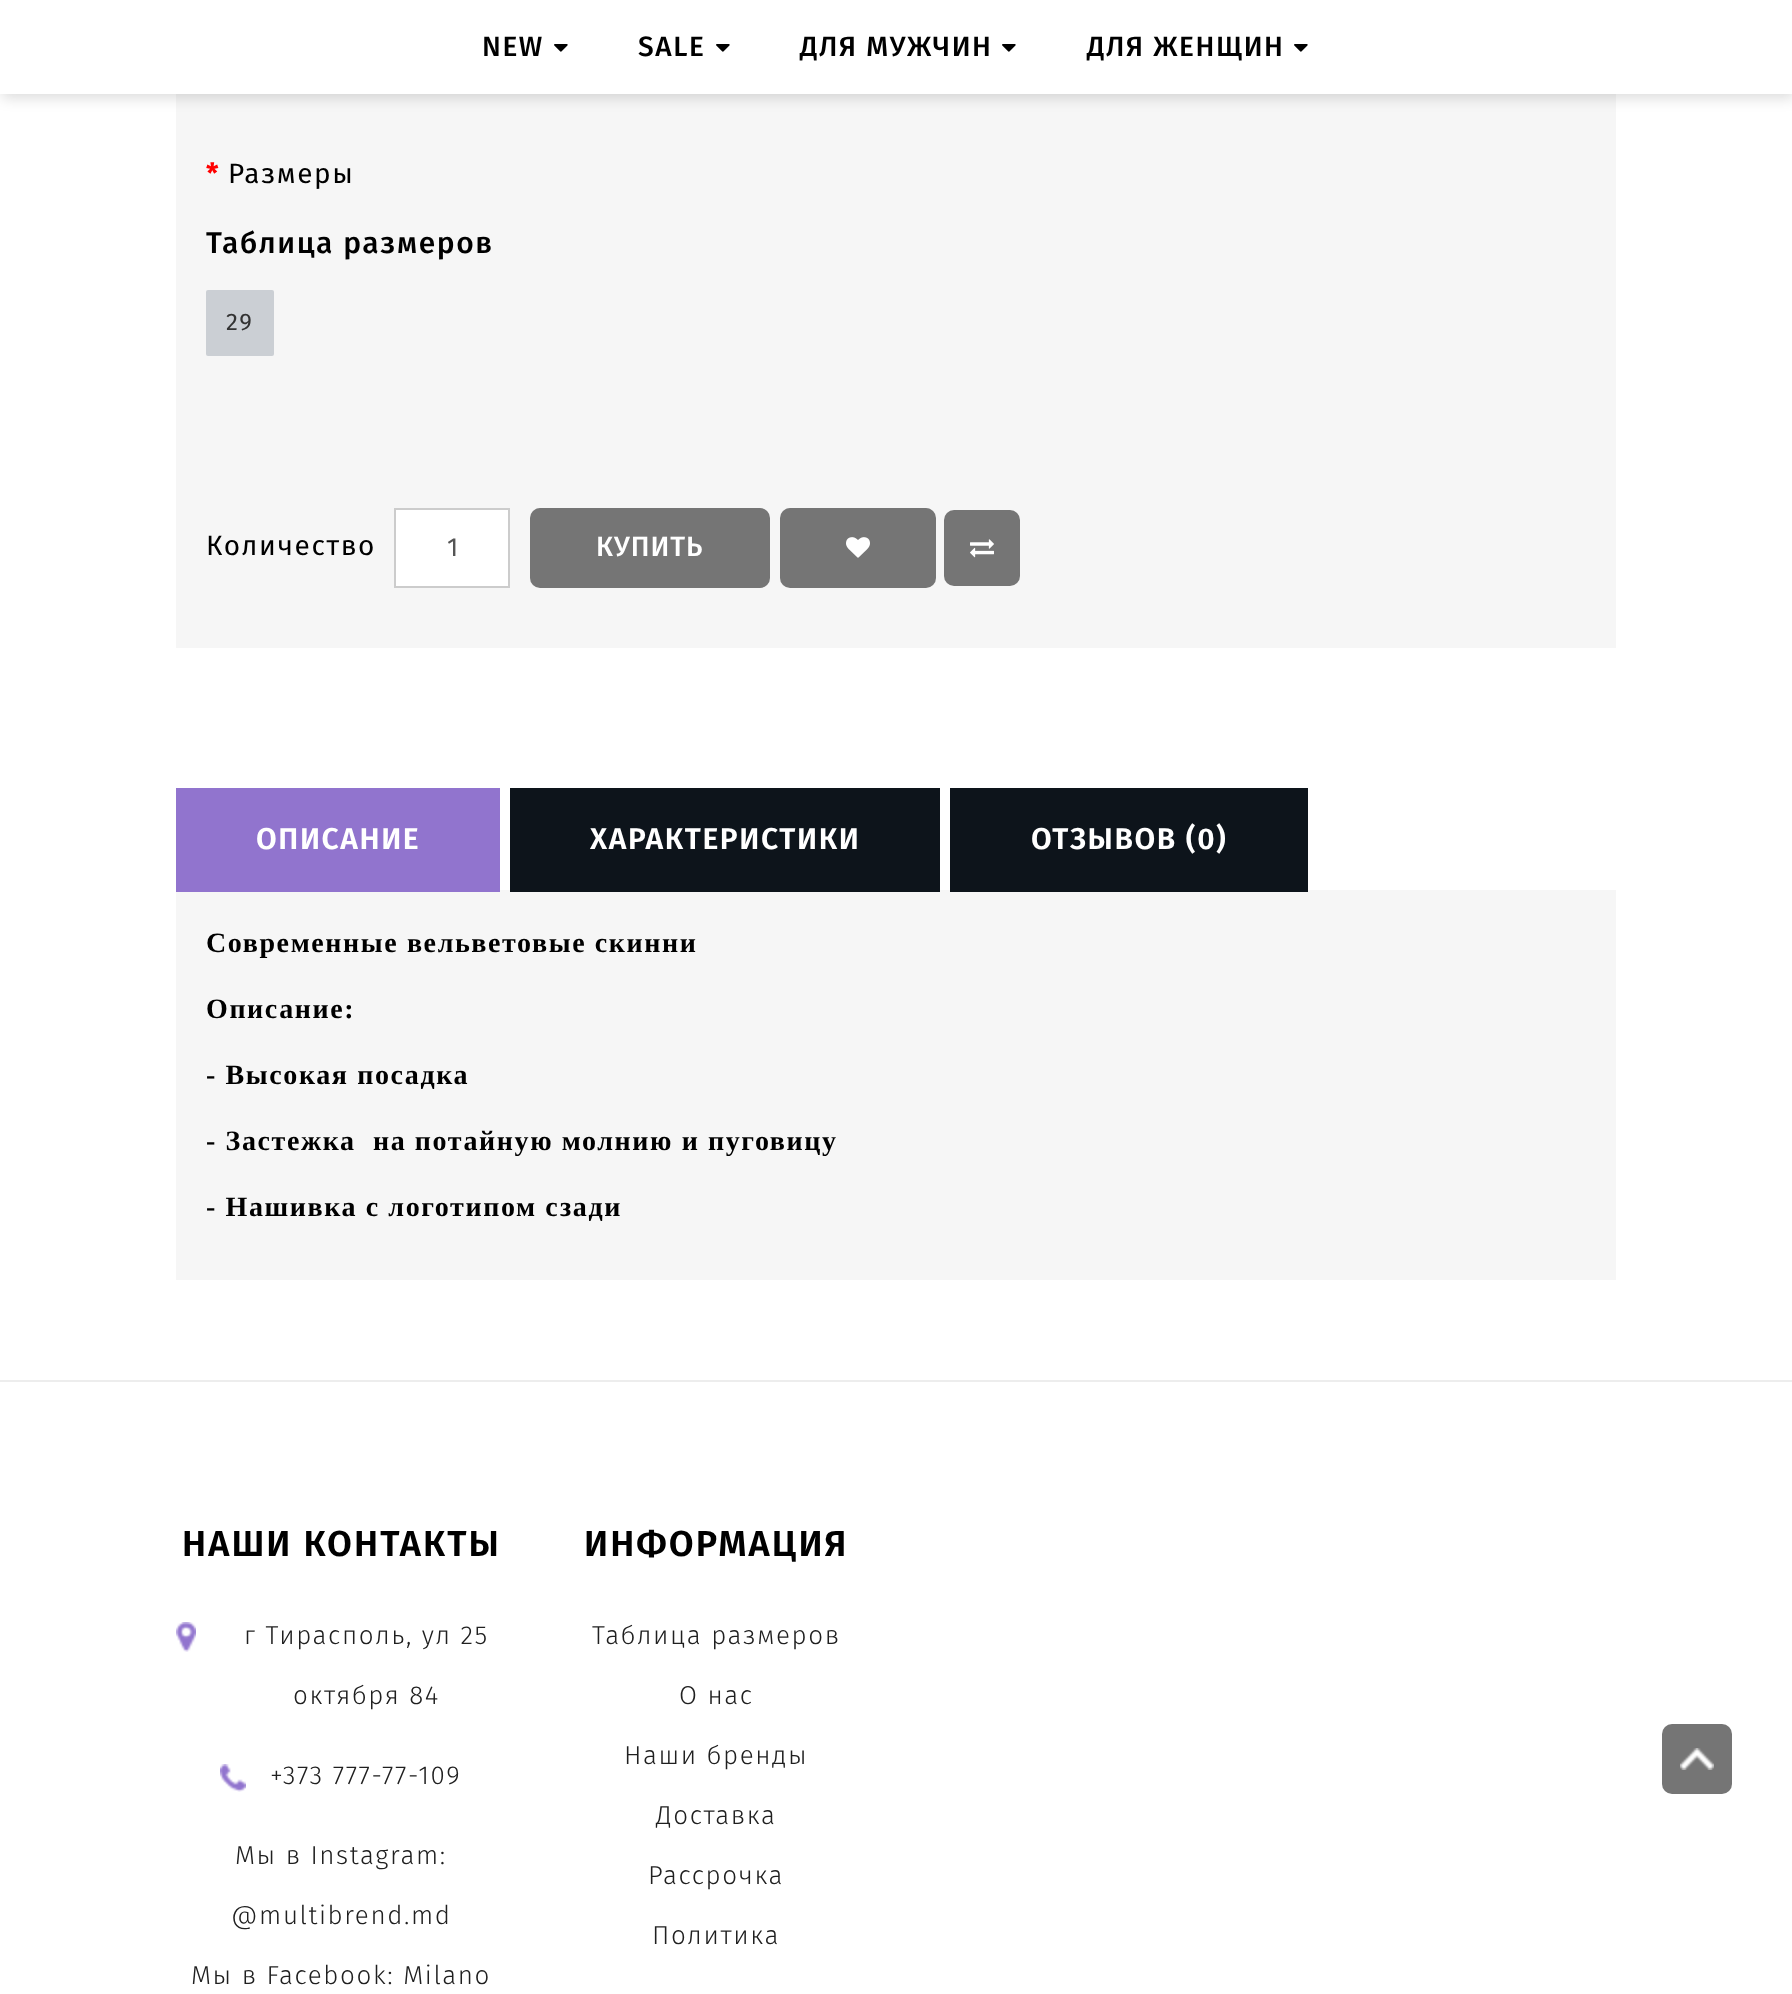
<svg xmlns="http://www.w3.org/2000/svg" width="1792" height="1994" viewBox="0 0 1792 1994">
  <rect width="100%" height="100%" fill="#fff"/>
  <path d="M176 94h1440v554H176z" fill="#f6f6f6"/>
  <path d="M2 4h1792v94H2z" fill="#00000024" filter="blur(7px)"/>
  <path d="M0 0h1792v94H0z" fill="#fff"/>
  <image x="554" y="44" width="14" height="8" href="img/1.png"/>
  <image x="716" y="44" width="14" height="8" href="img/1.png"/>
  <image x="1002" y="44" width="14" height="8" href="img/1.png"/>
  <image x="1294" y="44" width="14" height="8" href="img/1.png"/>
  <rect x="206" y="290" width="68" height="66" rx="2" fill="#cbcfd4"/>
  <path d="M395 509h114v78H395z" fill="#fff" stroke="#ccc" stroke-width="2"/>
  <rect x="530" y="508" width="240" height="80" rx="10" fill="#757575"/>
  <rect x="780" y="508" width="156" height="80" rx="10" fill="#757575"/>
  <image x="846" y="537" width="24" height="21" href="img/2.png"/>
  <rect x="944" y="510" width="76" height="76" rx="10" fill="#757575"/>
  <image x="970" y="539" width="24" height="19" href="img/3.png"/>
  <path d="M176 890h1440v390H176z" fill="#f6f6f6"/>
  <path d="M176 788h324v104H176z" fill="#9174ce"/>
  <path d="M510 788h430v104H510z" fill="#0d141b"/>
  <path d="M950 788h358v104H950z" fill="#0d141b"/>
  <path d="M0 1380h1792v2H0z" fill="#ededed"/>
  <image x="176" y="1622" width="20" height="30" href="img/4.png"/>
  <image x="220" y="1764" width="26" height="28" href="img/5.png"/>
  <rect x="1662" y="1724" width="70" height="70" rx="10" fill="#757575"/>
  <image x="1680" y="1748" width="34" height="22" href="img/6.png"/>
  <g font-family="Fira Sans" font-size="28" font-weight="500" letter-spacing="1.6" fill="#000">
    <text x="482" y="56">NEW</text>
    <text x="638" y="56">SALE</text>
    <text x="800" y="56">ДЛЯ МУЖЧИН</text>
    <text x="1087" y="56">ДЛЯ ЖЕНЩИН</text>
  </g>
  <text x="206" y="183" font-family="Fira Sans" font-size="28" font-weight="bold" letter-spacing="1.6" fill="#f00">*</text>
  <text x="228" y="183" font-family="Fira Sans" font-size="28" letter-spacing="1.6" fill="#000">Размеры</text>
  <text x="206" y="253" font-family="Fira Sans" font-size="30" font-weight="500" letter-spacing="1.6" fill="#000">Таблица размеров</text>
  <text x="226" y="330" font-family="Fira Sans" font-size="24" letter-spacing="1.6" fill="#333">29</text>
  <text x="206" y="555" font-family="Fira Sans" font-size="28" letter-spacing="1.6" fill="#000">Количество</text>
  <text x="447" y="556" font-family="Fira Sans" font-size="26" fill="#555">1</text>
  <text x="596" y="556" font-family="Fira Sans" font-size="28" font-weight="500" letter-spacing="1" fill="#fff">КУПИТЬ</text>
  <g font-family="Fira Sans" font-size="30" font-weight="600" letter-spacing="1.6" fill="#fff">
    <text x="256" y="849">ОПИСАНИЕ</text>
    <text x="590" y="849">ХАРАКТЕРИСТИКИ</text>
    <text x="1031" y="849">ОТЗЫВОВ (0)</text>
  </g>
  <g font-family="Liberation Serif" font-size="28" font-weight="bold" letter-spacing="1.6" fill="#000">
    <text x="206" y="952">Современные вельветовые скинни</text>
    <text x="206" y="1018">Описание:</text>
    <text x="206" y="1084">- Высокая посадка</text>
    <text x="206" y="1150" xml:space="preserve">- Застежка  на потайную молнию и пуговицу</text>
    <text x="206" y="1216">- Нашивка с логотипом сзади</text>
  </g>
  <text x="182" y="1556" font-family="Fira Sans" font-size="36" font-weight="600" letter-spacing="2.1" fill="#000">НАШИ КОНТАКТЫ</text>
  <g font-family="Fira Sans" font-size="26" font-weight="300" letter-spacing="1.6" fill="#202020">
    <text x="244" y="1644">г Тирасполь, ул 25</text>
    <text x="293" y="1704">октября 84</text>
    <text x="270" y="1784">+373 777-77-109</text>
    <text x="235" y="1864">Мы в Instagram:</text>
    <text x="231" y="1924">@multibrend.md</text>
    <text x="191" y="1984">Мы в Facebook: Milano</text>
  </g>
  <text x="584" y="1556" font-family="Fira Sans" font-size="36" font-weight="600" letter-spacing="2.1" fill="#000">ИНФОРМАЦИЯ</text>
  <g font-family="Fira Sans" font-size="26" font-weight="300" letter-spacing="1.6" fill="#202020">
    <text x="592" y="1644">Таблица размеров</text>
    <text x="679" y="1704">О нас</text>
    <text x="624" y="1764">Наши бренды</text>
    <text x="656" y="1824">Доставка</text>
    <text x="648" y="1884">Рассрочка</text>
    <text x="652" y="1944">Политика</text>
  </g>
</svg>
